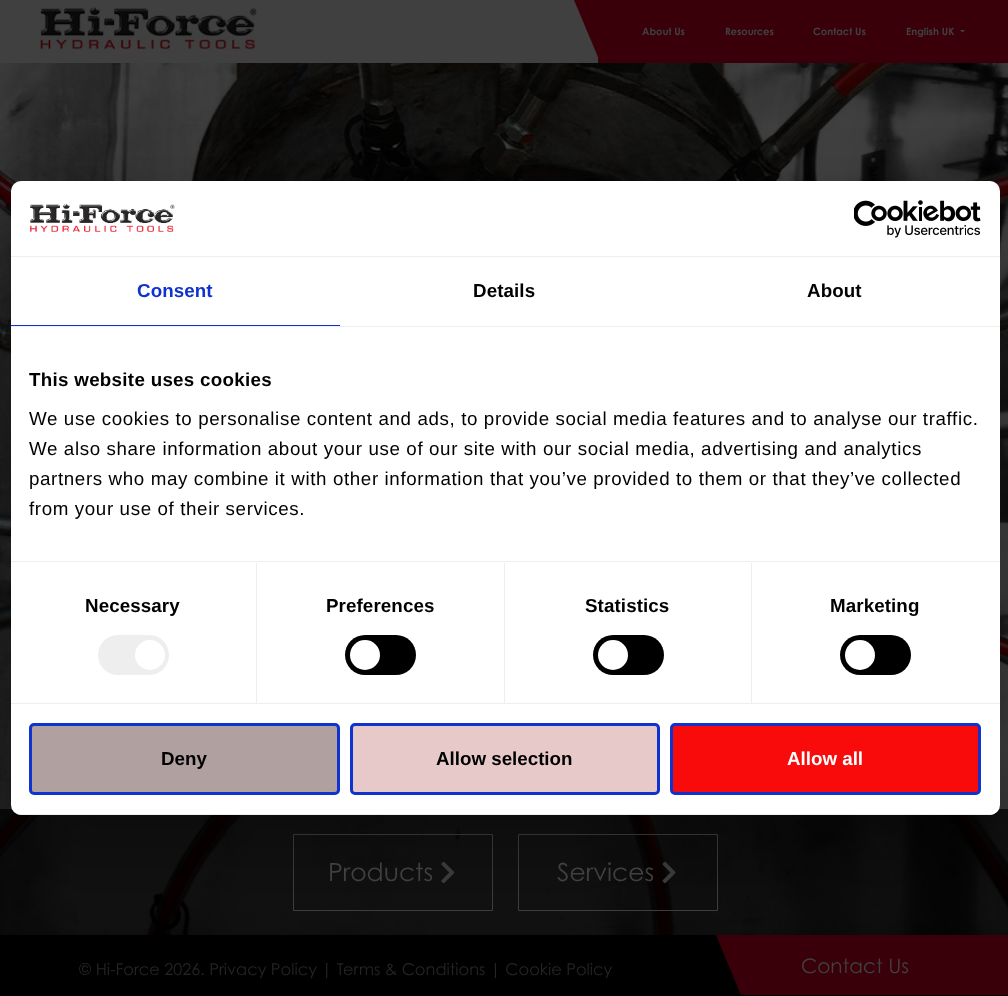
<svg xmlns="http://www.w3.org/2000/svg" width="1008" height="996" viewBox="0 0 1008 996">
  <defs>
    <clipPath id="clip1"><path d="M574 0h25v63H574z"/></clipPath>
    <clipPath id="clip2"><path d="M716 935h25v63H716z"/></clipPath>
    <clipPath id="clip3"><rect x="11" y="181" width="989" height="634" rx="10"/></clipPath>
  </defs>
  <rect width="100%" height="100%" fill="#fff"/>
  <path d="M0 0h598v63H0z" fill="#404040"/>
  <image x="40" y="7" width="217" height="43" href="img/1.png"/>
  <path d="M598 0h410v63H598z" fill="#3a000a"/>
  <g clip-path="url(#clip1)">
    <path d="M574 0H600V62Z" fill="#3a000a"/>
  </g>
  <path d="M960 30H965L962.5 32.5Z" fill="#404040"/>
  <image x="0" y="63" width="1008" height="872" href="img/2.png"/>
  <path d="M0 809h1008v126H0z" fill="#000000b3"/>
  <path d="M293.5 834.5h199v76H293.5z" fill="none" stroke="#404040"/>
  <image x="441" y="861" width="14" height="23" href="img/3.png"/>
  <path d="M518.5 834.5h199v76H518.5z" fill="none" stroke="#404040"/>
  <image x="662" y="861" width="14" height="23" href="img/4.png"/>
  <path d="M0 935h1008v61H0z" fill="#000"/>
  <path d="M741 935H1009V995H742C741.5 995 741 994.5 741 994Z" fill="#3a000a"/>
  <g clip-path="url(#clip2)">
    <path d="M716 935H742V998Z" fill="#3a000a"/>
  </g>
  <rect x="11" y="221" width="989" height="634" rx="10" fill="#0000004d" filter="blur(42.5px)"/>
  <rect x="11" y="181" width="989" height="634" rx="10" fill="#fff"/>
  <path d="M11 256h989v1H11z" fill="#eee"/>
  <image x="30" y="203" width="145" height="30" href="img/5.png"/>
  <image x="854" y="200" width="127" height="38" href="img/6.png"/>
  <path d="M11 326h989v1H11z" fill="#eee"/>
  <path d="M11 325h329v1H11z" fill="#1032cf"/>
  <path d="M11 561h989v1H11z" fill="#eee"/>
  <path d="M11 703h989v1H11z" fill="#eee"/>
  <path d="M256 563h1v140H256z" fill="#eee"/>
  <rect x="98" y="635" width="71" height="40" rx="20" fill="#eee"/>
  <circle cx="150" cy="655" r="15" fill="#fff"/>
  <path d="M504 563h1v140H504z" fill="#eee"/>
  <rect x="345" y="635" width="71" height="40" rx="20" fill="#000"/>
  <circle cx="365" cy="655" r="15" fill="#fff"/>
  <path d="M751 563h1v140H751z" fill="#eee"/>
  <rect x="593" y="635" width="71" height="40" rx="20" fill="#000"/>
  <circle cx="613" cy="655" r="15" fill="#fff"/>
  <rect x="840" y="635" width="71" height="40" rx="20" fill="#000"/>
  <circle cx="860" cy="655" r="15" fill="#fff"/>
  <g clip-path="url(#clip3)">
    <path d="M11 814h989v1H11z" fill="#eee"/>
  </g>
  <rect x="30.5" y="724.5" width="308" height="69" rx="3.5" fill="#b0a0a0" stroke="#1032cf" stroke-width="3"/>
  <rect x="351.5" y="724.5" width="307" height="69" rx="3.5" fill="#e8c9c9" stroke="#1032cf" stroke-width="3"/>
  <rect x="671.5" y="724.5" width="308" height="69" rx="3.5" fill="#f90b0b" stroke="#1032cf" stroke-width="3"/>
  <g font-family="Century Gothic" font-size="10" font-weight="bold" fill="#404040">
    <text x="642" y="35">About Us</text>
    <text x="725" y="35">Resources</text>
    <text x="813" y="35">Contact Us</text>
    <text x="906" y="35">English UK</text>
  </g>
  <g font-family="Century Gothic" font-size="25" fill="#404040">
    <text x="328" y="881">Products</text>
    <text x="557" y="881">Services</text>
  </g>
  <text x="79" y="975" font-family="Century Gothic" font-size="16.25" fill="#242525">© Hi-Force 2026. Privacy Policy | Terms &amp; Conditions | Cookie Policy</text>
  <text x="801" y="973" font-family="Century Gothic" font-size="20" fill="#404040">Contact Us</text>
  <text x="137" y="297" font-family="Liberation Sans" font-size="18.75" font-weight="bold" letter-spacing="0.1" fill="#1032cf">Consent</text>
  <g font-family="Liberation Sans" font-size="18.75" font-weight="bold" letter-spacing="0.1" fill="#000">
    <text x="473" y="297">Details</text>
    <text x="807" y="297">About</text>
  </g>
  <text x="29" y="386" font-family="Liberation Sans" font-size="18.75" font-weight="bold" letter-spacing="0.3" fill="#000">This website uses cookies</text>
  <g font-family="Liberation Sans" font-size="18.75" letter-spacing="0.62" fill="#000">
    <text x="29" y="425">We use cookies to personalise content and ads, to provide social media features and to analyse our traffic.</text>
    <text x="29" y="455">We also share information about your use of our site with our social media, advertising and analytics</text>
    <text x="29" y="485">partners who may combine it with other information that you’ve provided to them or that they’ve collected</text>
    <text x="29" y="515">from your use of their services.</text>
  </g>
  <g font-family="Liberation Sans" font-size="18.75" font-weight="bold" letter-spacing="0.1" fill="#000">
    <text x="85" y="612">Necessary</text>
    <text x="326" y="612">Preferences</text>
    <text x="585" y="612">Statistics</text>
    <text x="830" y="612">Marketing</text>
  </g>
  <g font-family="Liberation Sans" font-size="18.75" font-weight="bold" fill="#000">
    <text x="161" y="765">Deny</text>
    <text x="436" y="765">Allow selection</text>
  </g>
  <text x="787" y="765" font-family="Liberation Sans" font-size="18.75" font-weight="bold" fill="#fff">Allow all</text>
</svg>
